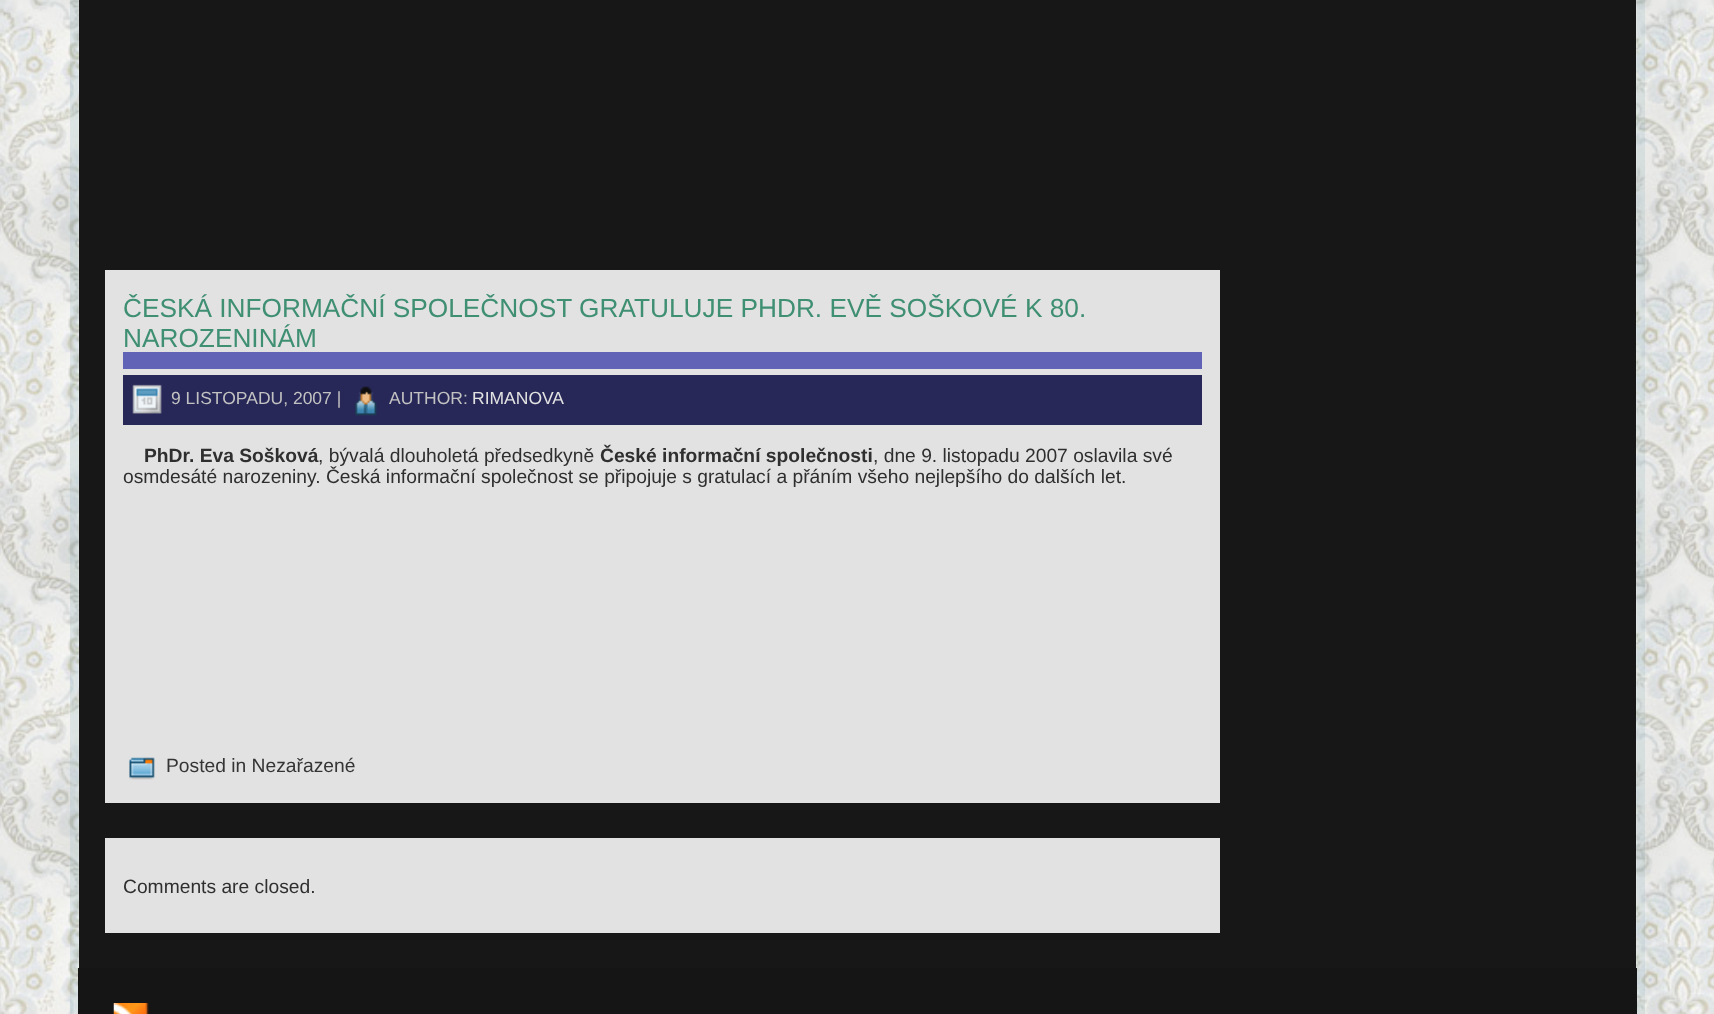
<svg xmlns="http://www.w3.org/2000/svg" width="1714" height="1014" viewBox="0 0 1714 1014">
  <rect width="100%" height="100%" fill="#fff"/>
  <image x="0" y="0" width="1714" height="1014" href="img/1.png"/>
  <image x="70" y="0" width="9" height="1014" href="img/2.png"/>
  <path d="M79 0h1557v968H79z" fill="#171717"/>
  <path d="M105 270h1115v533H105z" fill="#e2e2e2"/>
  <path d="M123 352h1079v17H123z" fill="#6163b6"/>
  <path d="M123 375h1079v50H123z" fill="#272858"/>
  <image x="132" y="384" width="30" height="30" href="img/3.png"/>
  <image x="355" y="386" width="22" height="30" href="img/4.png"/>
  <image x="129" y="757" width="26" height="23" href="img/5.png"/>
  <path d="M105 838h1115v95H105z" fill="#e2e2e2"/>
  <image x="1636" y="0" width="9" height="1014" href="img/7.png"/>
  <path d="M78 968h1559v46H78z" fill="#151515"/>
  <image x="113" y="1003" width="36" height="11" href="img/6.png"/>
  <g font-family="Liberation Sans" font-size="26.25" fill="#3f8f72">
    <text x="123" y="317">ČESKÁ INFORMAČNÍ SPOLEČNOST GRATULUJE PHDR. EVĚ SOŠKOVÉ K 80.</text>
    <text x="123" y="347">NAROZENINÁM</text>
  </g>
  <g font-family="Liberation Sans" font-size="17.5" fill="#c2c2c2">
    <text x="171" y="404">9 LISTOPADU, 2007 |</text>
    <text x="389" y="404">AUTHOR:</text>
  </g>
  <text x="472" y="404" font-family="Liberation Sans" font-size="17.5" fill="#e2e2e2">RIMANOVA</text>
  <text x="144" y="462" font-family="Liberation Sans" font-size="19.25" font-weight="bold" fill="#2f2f2f">PhDr. Eva Sošková</text>
  <text x="318" y="462" font-family="Liberation Sans" font-size="19.25" fill="#2f2f2f">, bývalá dlouholetá předsedkyně</text>
  <text x="600" y="462" font-family="Liberation Sans" font-size="19.25" font-weight="bold" fill="#2f2f2f">České informační společnosti</text>
  <g font-family="Liberation Sans" font-size="19.25" fill="#2f2f2f">
    <text x="873" y="462">, dne 9. listopadu 2007 oslavila své</text>
    <text x="123" y="483">osmdesáté narozeniny. Česká informační společnost se připojuje s gratulací a přáním všeho nejlepšího do dalších let.</text>
  </g>
  <text x="166" y="772" font-family="Liberation Sans" font-size="19.25" fill="#353535">Posted in Nezařazené</text>
  <text x="123" y="893" font-family="Liberation Sans" font-size="19.25" fill="#2f2f2f">Comments are closed.</text>
</svg>
